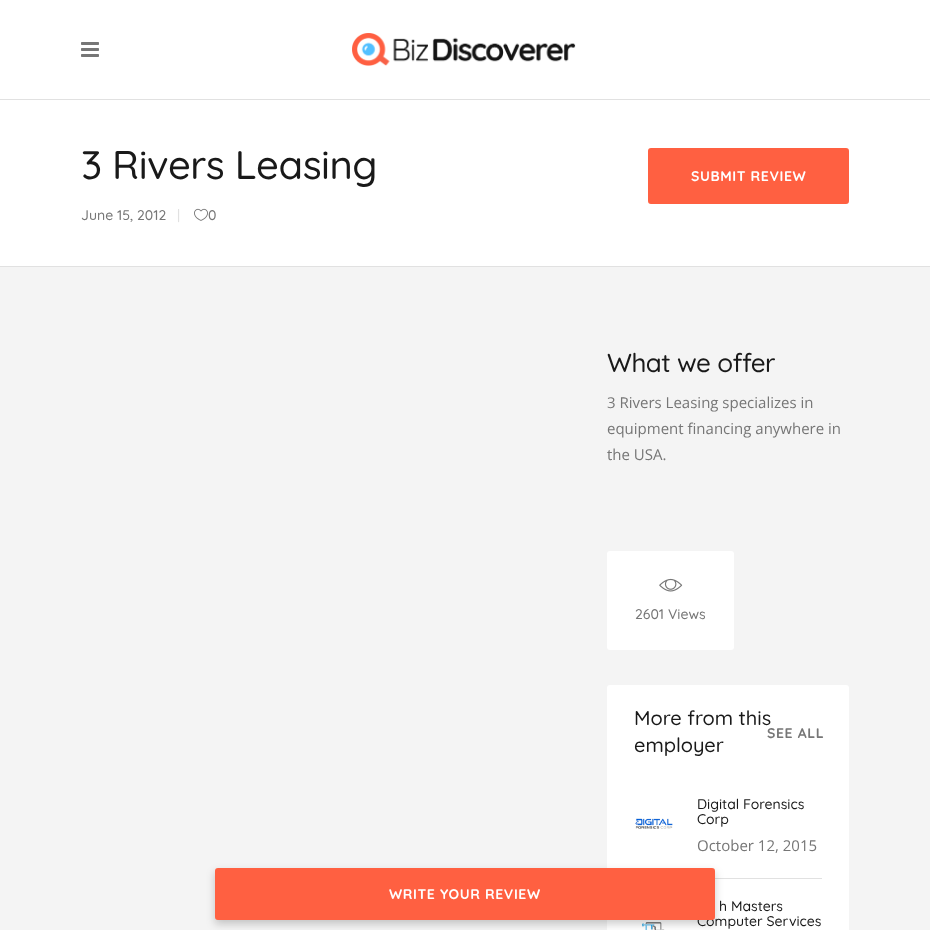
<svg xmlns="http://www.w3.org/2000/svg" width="930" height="930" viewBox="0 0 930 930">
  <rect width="100%" height="100%" fill="#fff"/>
  <path d="M0 99h930v1H0z" fill="#e1e1e1"/>
  <image x="81" y="42" width="18" height="15" href="img/1.png"/>
  <image x="352" y="33" width="224" height="33" href="img/2.png"/>
  <path d="M0 267h930v663H0z" fill="#f4f4f4"/>
  <path d="M0 266h930v1H0z" fill="#e1e1e1"/>
  <image x="194" y="208" width="14" height="13" href="img/3.png"/>
  <rect x="649" y="149" width="199" height="54" rx="2" fill="#ff6041" stroke="#ff6041" stroke-width="2"/>
  <rect x="607" y="685" width="242" height="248" rx="3" fill="#fff"/>
  <path d="M715 878h107v1H715z" fill="#e1e1e1"/>
  <image x="642" y="922" width="23" height="8" href="img/6.png"/>
  <path d="M215 872h500v52H215z" fill="#00000033" filter="blur(4px)"/>
  <rect x="607" y="551" width="127" height="99" rx="3" fill="#fff"/>
  <image x="659" y="578" width="24" height="14" href="img/4.png"/>
  <image x="635" y="818" width="38" height="11" href="img/5.png"/>
  <text x="81" y="179" font-family="Quicksand" font-size="40" font-weight="500" letter-spacing="-0.5" fill="#191919">3 Rivers Leasing</text>
  <text x="81" y="220" font-family="Quicksand" font-size="14" font-weight="500" fill="#767676">June 15, 2012</text>
  <text x="177" y="220" font-family="Quicksand" font-size="14" font-weight="500" fill="#e1e1e1">|</text>
  <text x="208" y="220" font-family="Quicksand" font-size="14" font-weight="500" fill="#767676">0</text>
  <text x="691" y="181" font-family="Quicksand" font-size="14" font-weight="bold" letter-spacing="0.6" fill="#fff">SUBMIT REVIEW</text>
  <text x="607" y="372" font-family="Quicksand" font-size="26" font-weight="500" letter-spacing="-0.5" fill="#191919">What we offer</text>
  <g font-family="Open Sans" font-size="15" fill="#767676">
    <text x="607" y="408">3 Rivers Leasing specializes in</text>
    <text x="607" y="434">equipment financing anywhere in</text>
    <text x="607" y="460">the USA.</text>
  </g>
  <text x="635" y="619" font-family="Quicksand" font-size="14" font-weight="500" fill="#767676">2601 Views</text>
  <g font-family="Quicksand" font-size="20" font-weight="500" fill="#191919">
    <text x="634" y="725">More from this</text>
    <text x="634" y="752">employer</text>
  </g>
  <text x="767" y="738" font-family="Quicksand" font-size="14" font-weight="bold" letter-spacing="0.6" fill="#767676">SEE ALL</text>
  <g font-family="Quicksand" font-size="14" font-weight="500" fill="#191919">
    <text x="697" y="809">Digital Forensics</text>
    <text x="697" y="824">Corp</text>
  </g>
  <text x="697" y="851" font-family="Open Sans" font-size="15" fill="#767676">October 12, 2015</text>
  <g font-family="Quicksand" font-size="14" font-weight="500" fill="#191919">
    <text x="719" y="911">h Masters</text>
    <text x="697" y="926">Computer Services</text>
  </g>
  <rect x="216" y="869" width="498" height="50" rx="2" fill="#ff6041" stroke="#ff6041" stroke-width="2"/>
  <text x="389" y="899" font-family="Quicksand" font-size="14" font-weight="bold" letter-spacing="0.6" fill="#fff">WRITE YOUR REVIEW</text>
</svg>
